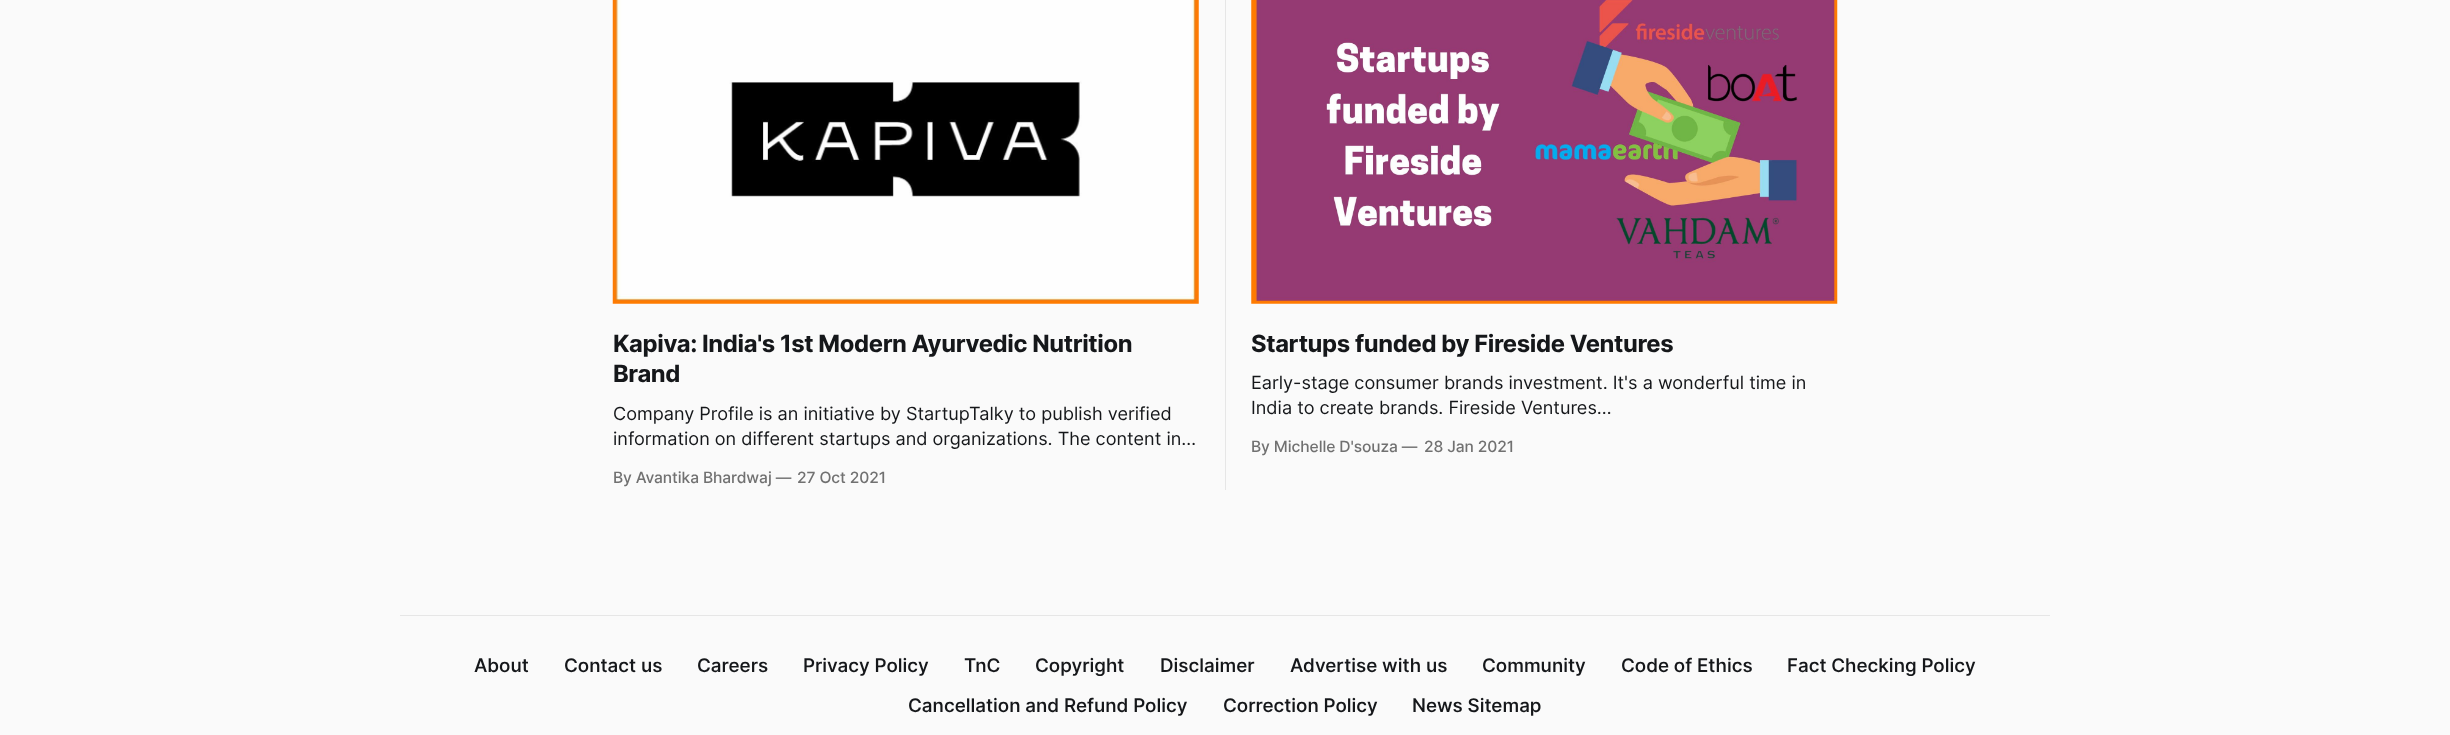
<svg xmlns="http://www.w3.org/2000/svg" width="2450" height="735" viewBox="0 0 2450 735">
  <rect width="100%" height="100%" fill="#fafafa"/>
  <image x="612" y="0" width="587" height="304" href="img/1.png"/>
  <path d="M1225 0h1v490H1225z" fill="#e6e6e6"/>
  <image x="1251" y="0" width="587" height="304" href="img/2.png"/>
  <path d="M400 615h1650v1H400z" fill="#e6e6e6"/>
  <g font-family="Inter" font-size="23.75" font-weight="bold" letter-spacing="-0.35" fill="#15171a">
    <text x="613" y="352">Kapiva: India's 1st Modern Ayurvedic Nutrition</text>
    <text x="613" y="382">Brand</text>
  </g>
  <g font-family="Inter" font-size="18.1" fill="#15171a">
    <text x="613" y="420">Company Profile is an initiative by StartupTalky to publish verified</text>
    <text x="613" y="445">information on different startups and organizations. The content in…</text>
  </g>
  <g font-family="'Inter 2'" font-size="15.6" font-weight="500" letter-spacing="-0.1" fill="#717171">
    <text x="613" y="483">By Avantika Bhardwaj —</text>
    <text x="797" y="483">27 Oct 2021</text>
  </g>
  <text x="1251" y="352" font-family="Inter" font-size="23.75" font-weight="bold" letter-spacing="-0.35" fill="#15171a">Startups funded by Fireside Ventures</text>
  <g font-family="Inter" font-size="18.1" fill="#15171a">
    <text x="1251" y="389">Early-stage consumer brands investment. It's a wonderful time in</text>
    <text x="1251" y="414">India to create brands. Fireside Ventures…</text>
  </g>
  <g font-family="'Inter 2'" font-size="15.6" font-weight="500" letter-spacing="-0.1" fill="#717171">
    <text x="1251" y="452">By Michelle D'souza —</text>
    <text x="1424" y="452">28 Jan 2021</text>
  </g>
  <g font-family="Inter" font-size="18.75" font-weight="500" fill="#15171a">
    <text x="474" y="672">About</text>
    <text x="564" y="672">Contact us</text>
    <text x="697" y="672">Careers</text>
    <text x="803" y="672">Privacy Policy</text>
    <text x="964" y="672">TnC</text>
    <text x="1035" y="672">Copyright</text>
    <text x="1160" y="672">Disclaimer</text>
    <text x="1290" y="672">Advertise with us</text>
    <text x="1482" y="672">Community</text>
    <text x="1621" y="672">Code of Ethics</text>
    <text x="1787" y="672">Fact Checking Policy</text>
    <text x="908" y="712">Cancellation and Refund Policy</text>
    <text x="1223" y="712">Correction Policy</text>
    <text x="1412" y="712">News Sitemap</text>
  </g>
</svg>
